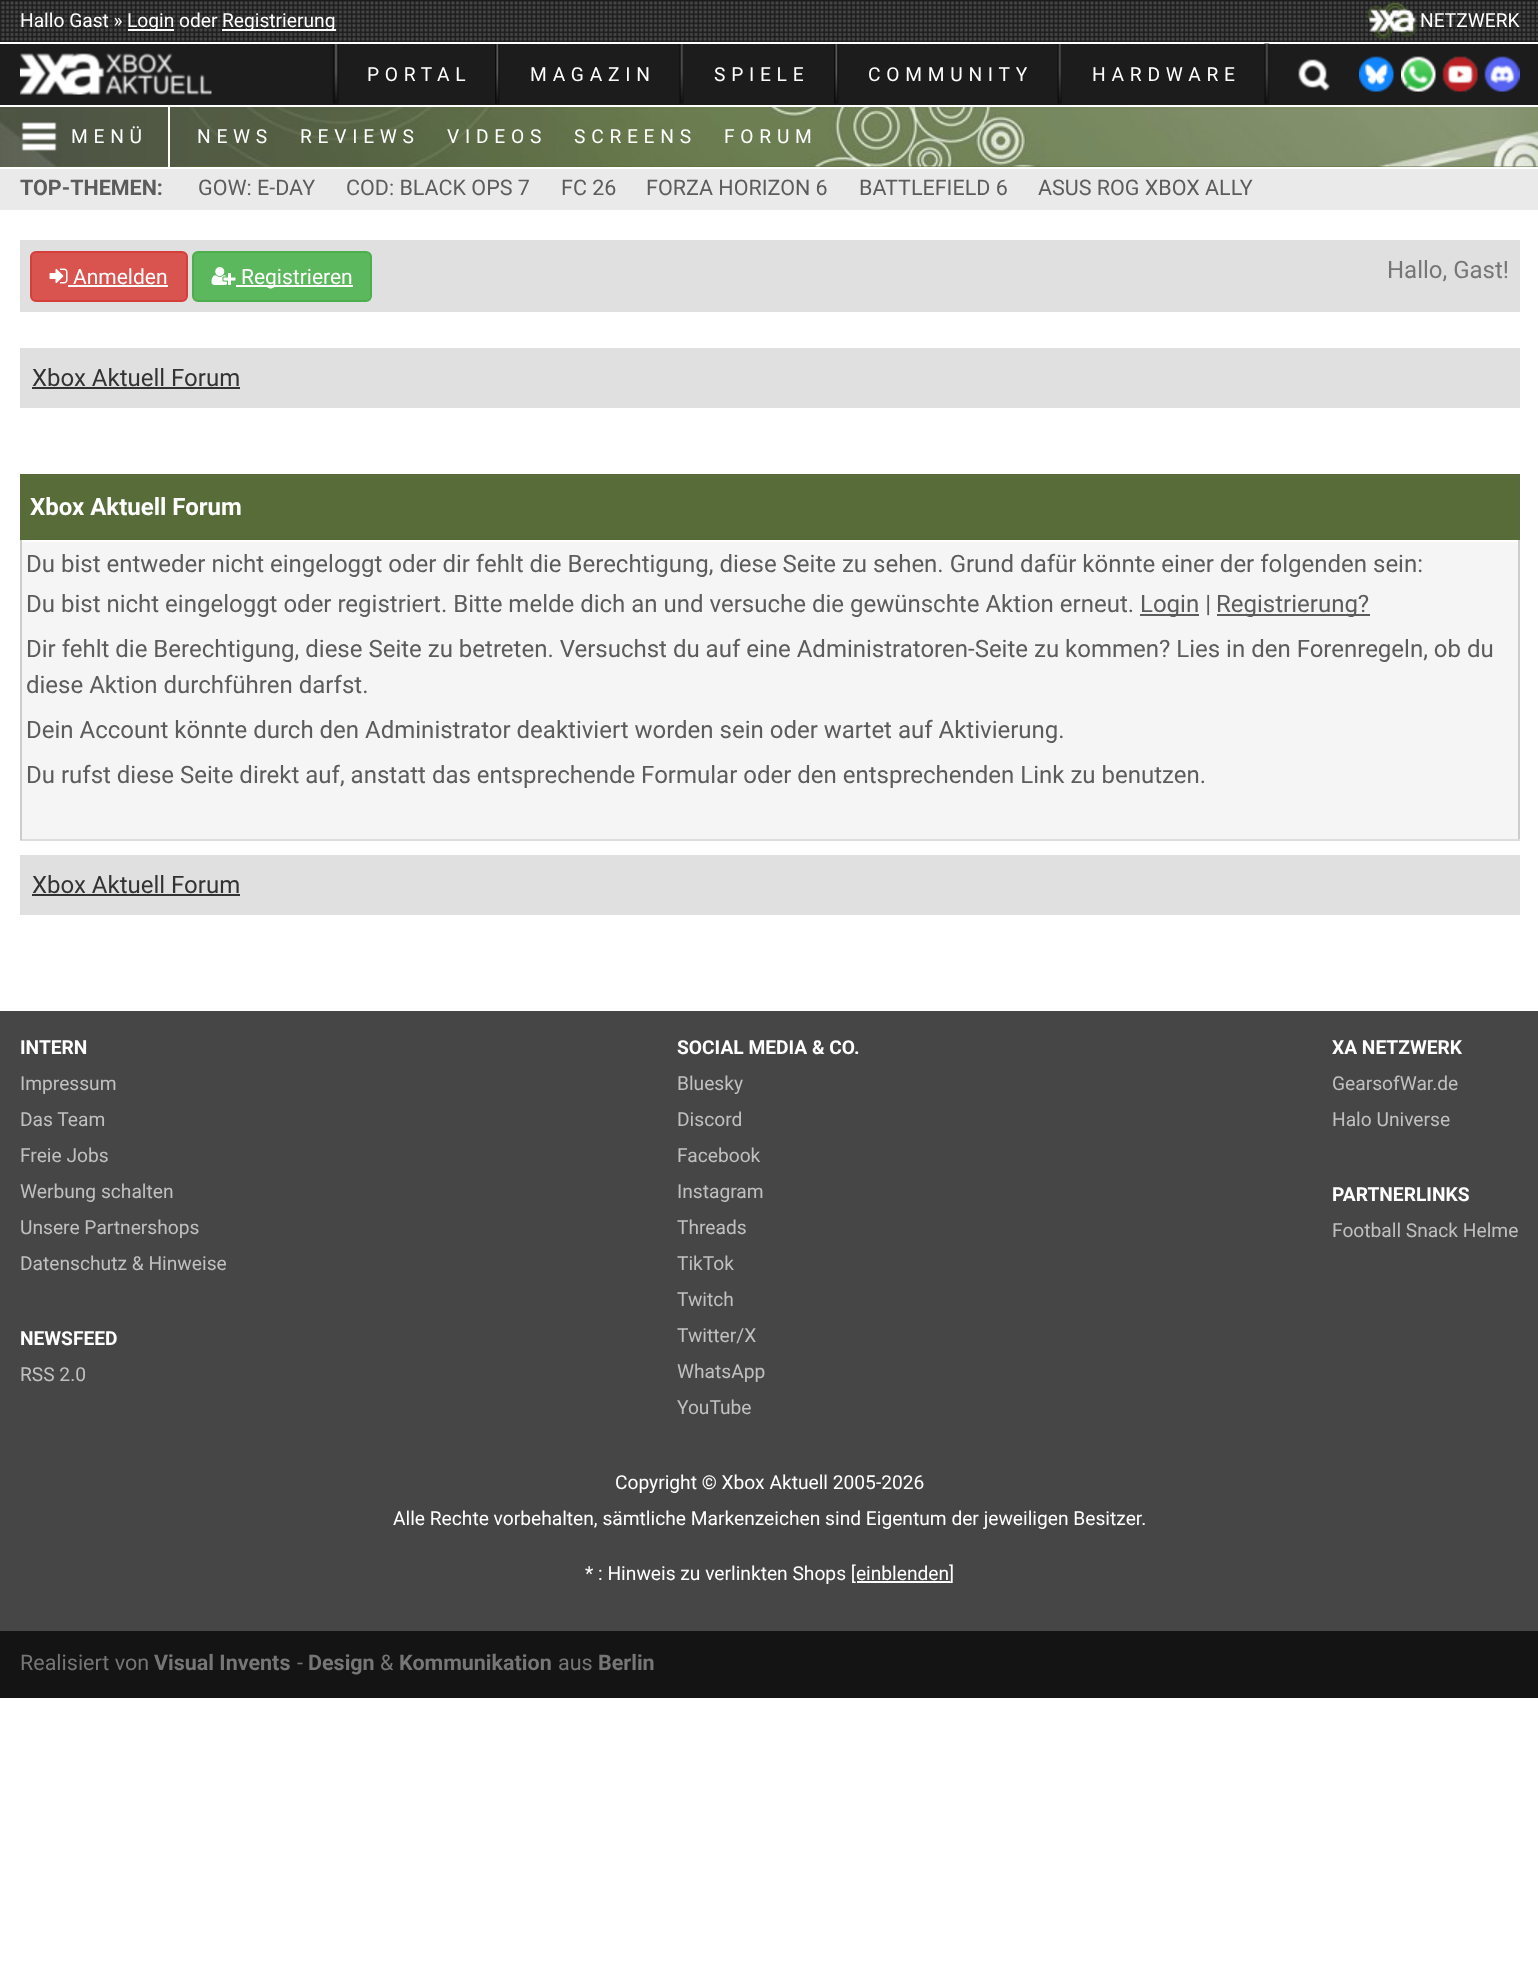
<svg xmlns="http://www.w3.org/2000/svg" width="1538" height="1985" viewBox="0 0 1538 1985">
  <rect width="100%" height="100%" fill="#fff"/>
  <image x="0" y="0" width="1538" height="42" href="img/1.png"/>
  <path d="M128 29h46v2H128z" fill="#fff"/>
  <path d="M222 29h114v2H222z" fill="#fff"/>
  <image x="1366" y="1" width="51" height="39" href="img/2.png"/>
  <path d="M0 44h1538v61H0z" fill="#1c1c1c"/>
  <image x="20" y="53" width="192" height="42" href="img/3.png"/>
  <image x="332" y="44" width="7" height="60" href="img/4.png"/>
  <image x="495" y="44" width="5" height="60" href="img/5.png"/>
  <image x="679" y="44" width="5" height="60" href="img/6.png"/>
  <image x="834" y="44" width="5" height="60" href="img/5.png"/>
  <image x="1057" y="44" width="5" height="60" href="img/6.png"/>
  <image x="1264" y="43" width="6" height="61" href="img/7.png"/>
  <image x="1298" y="59" width="32" height="32" href="img/8.png"/>
  <image x="1359" y="56" width="35" height="36" href="img/9.png"/>
  <image x="1401" y="56" width="35" height="36" href="img/10.png"/>
  <image x="1442" y="56" width="36" height="36" href="img/11.png"/>
  <image x="1484" y="56" width="36" height="36" href="img/12.png"/>
  <path d="M0 166h1538v1H0z" fill="#586c3a"/>
  <image x="0" y="107" width="1538" height="60" href="img/13.png"/>
  <image x="21" y="122" width="36" height="29" href="img/14.png"/>
  <path d="M168 107h2v60H168z" fill="#fff"/>
  <path d="M0 169h1538v41H0z" fill="#eaeaea"/>
  <path d="M20 240h1500v72H20z" fill="#e0e0e0"/>
  <rect x="31" y="252" width="156" height="49" rx="5" fill="#d9534f" stroke="#d43f3a" stroke-width="2"/>
  <image x="49" y="268" width="19" height="16" href="img/15.png"/>
  <path d="M68 285h100v2H68z" fill="#fff"/>
  <rect x="193" y="252" width="178" height="49" rx="5" fill="#5cb85c" stroke="#4cae4c" stroke-width="2"/>
  <image x="211" y="267" width="25" height="18" href="img/16.png"/>
  <path d="M236 285h117v2H236z" fill="#fff"/>
  <path d="M20 348h1500v60H20z" fill="#e0e0e0"/>
  <path d="M32 387h208v2H32z" fill="#333"/>
  <path d="M20 474h1500v66H20z" fill="#586c3a"/>
  <path d="M22 542h1496v297H22z" fill="#f5f5f5"/>
  <path d="M1518 540h2v300H1518z" fill="#ccc"/>
  <path d="M20 839h1500v2H20z" fill="#ddd"/>
  <path d="M20 540h2v300H20z" fill="#ccc"/>
  <path d="M1140 614h59v2H1140z" fill="#5c5c5c"/>
  <path d="M1217 614h153v2H1217z" fill="#5c5c5c"/>
  <path d="M20 855h1500v60H20z" fill="#e0e0e0"/>
  <path d="M32 894h208v2H32z" fill="#333"/>
  <path d="M0 1011h1538v620H0z" fill="#464646"/>
  <path d="M857 1581h93v2H857z" fill="#fff"/>
  <path d="M0 1631h1538v67H0z" fill="#141414"/>
  <g font-family="Roboto" font-size="19.2" fill="#fff">
    <text x="20" y="27">Hallo Gast »</text>
    <text x="127" y="27">Login oder</text>
    <text x="222" y="27">Registrierung</text>
    <text x="1420" y="27">NETZWERK</text>
  </g>
  <g font-family="Roboto" font-size="19.2" letter-spacing="5.75" fill="#fff">
    <text x="367" y="81">PORTAL</text>
    <text x="530" y="81">MAGAZIN</text>
    <text x="714" y="81">SPIELE</text>
    <text x="868" y="81">COMMUNITY</text>
    <text x="1092" y="81">HARDWARE</text>
    <text x="71" y="143">MENÜ</text>
    <text x="197" y="143">NEWS</text>
    <text x="300" y="143">REVIEWS</text>
    <text x="447" y="143">VIDEOS</text>
    <text x="574" y="143">SCREENS</text>
    <text x="724" y="143">FORUM</text>
  </g>
  <text x="20" y="195" font-family="Roboto" font-size="21.5" font-weight="bold" fill="#5c5c5c">TOP-THEMEN:</text>
  <g font-family="Roboto" font-size="21.5" fill="#5c5c5c">
    <text x="198" y="195">GOW: E-DAY</text>
    <text x="346" y="195">COD: BLACK OPS 7</text>
    <text x="561" y="195">FC 26</text>
    <text x="646" y="195">FORZA HORIZON 6</text>
    <text x="859" y="195">BATTLEFIELD 6</text>
    <text x="1038" y="195">ASUS ROG XBOX ALLY</text>
  </g>
  <g font-family="Roboto" font-size="21" fill="#fff">
    <text x="73" y="284">Anmelden</text>
    <text x="241" y="284">Registrieren</text>
  </g>
  <text x="1387" y="278" font-family="Roboto" font-size="24" fill="#767676">Hallo, Gast!</text>
  <text x="32" y="386" font-family="Roboto" font-size="24" fill="#333">Xbox Aktuell Forum</text>
  <text x="30" y="515" font-family="Roboto" font-size="24" font-weight="bold" fill="#fff">Xbox Aktuell Forum</text>
  <g font-family="Roboto" font-size="24" fill="#5c5c5c">
    <text x="26" y="572">Du bist entweder nicht eingeloggt oder dir fehlt die Berechtigung, diese Seite zu sehen. Grund dafür könnte einer der folgenden sein:</text>
    <text x="26" y="612">Du bist nicht eingeloggt oder registriert. Bitte melde dich an und versuche die gewünschte Aktion erneut.</text>
    <text x="1140" y="612">Login |</text>
    <text x="1216" y="612">Registrierung?</text>
    <text x="26" y="657">Dir fehlt die Berechtigung, diese Seite zu betreten. Versuchst du auf eine Administratoren-Seite zu kommen? Lies in den Forenregeln, ob du</text>
    <text x="26" y="693">diese Aktion durchführen darfst.</text>
    <text x="26" y="738">Dein Account könnte durch den Administrator deaktiviert worden sein oder wartet auf Aktivierung.</text>
    <text x="26" y="783">Du rufst diese Seite direkt auf, anstatt das entsprechende Formular oder den entsprechenden Link zu benutzen.</text>
  </g>
  <text x="32" y="893" font-family="Roboto" font-size="24" fill="#333">Xbox Aktuell Forum</text>
  <text x="20" y="1054" font-family="Roboto" font-size="19.2" font-weight="bold" fill="#fff">INTERN</text>
  <g font-family="Roboto" font-size="19.2" fill="#c0c0c0">
    <text x="20" y="1090">Impressum</text>
    <text x="20" y="1126">Das Team</text>
    <text x="20" y="1162">Freie Jobs</text>
    <text x="20" y="1198">Werbung schalten</text>
    <text x="20" y="1234">Unsere Partnershops</text>
    <text x="20" y="1270">Datenschutz &amp; Hinweise</text>
  </g>
  <text x="20" y="1345" font-family="Roboto" font-size="19.2" font-weight="bold" fill="#fff">NEWSFEED</text>
  <text x="20" y="1381" font-family="Roboto" font-size="19.2" fill="#c0c0c0">RSS 2.0</text>
  <text x="677" y="1054" font-family="Roboto" font-size="19.2" font-weight="bold" fill="#fff">SOCIAL MEDIA &amp; CO.</text>
  <g font-family="Roboto" font-size="19.2" fill="#c0c0c0">
    <text x="677" y="1090">Bluesky</text>
    <text x="677" y="1126">Discord</text>
    <text x="677" y="1162">Facebook</text>
    <text x="677" y="1198">Instagram</text>
    <text x="677" y="1234">Threads</text>
    <text x="677" y="1270">TikTok</text>
    <text x="677" y="1306">Twitch</text>
    <text x="677" y="1342">Twitter/X</text>
    <text x="677" y="1378">WhatsApp</text>
    <text x="677" y="1414">YouTube</text>
  </g>
  <text x="1332" y="1054" font-family="Roboto" font-size="19.2" font-weight="bold" fill="#fff">XA NETZWERK</text>
  <g font-family="Roboto" font-size="19.2" fill="#c0c0c0">
    <text x="1332" y="1090">GearsofWar.de</text>
    <text x="1332" y="1126">Halo Universe</text>
  </g>
  <text x="1332" y="1201" font-family="Roboto" font-size="19.2" font-weight="bold" fill="#fff">PARTNERLINKS</text>
  <text x="1332" y="1237" font-family="Roboto" font-size="19.2" fill="#c0c0c0">Football Snack Helme</text>
  <g font-family="Roboto" font-size="19.2" fill="#fff">
    <text x="615" y="1489">Copyright © Xbox Aktuell 2005-2026</text>
    <text x="393" y="1525">Alle Rechte vorbehalten, sämtliche Markenzeichen sind Eigentum der jeweiligen Besitzer.</text>
    <text x="585" y="1580">* : Hinweis zu verlinkten Shops [einblenden</text>
    <text x="949" y="1580">]</text>
  </g>
  <text x="20" y="1670" font-family="Roboto" font-size="21.5" fill="#767676">Realisiert von</text>
  <text x="154" y="1670" font-family="Roboto" font-size="21.5" font-weight="bold" fill="#767676">Visual Invents</text>
  <text x="297" y="1670" font-family="Roboto" font-size="21.5" fill="#767676">-</text>
  <text x="308" y="1670" font-family="Roboto" font-size="21.5" font-weight="bold" fill="#767676">Design</text>
  <text x="380" y="1670" font-family="Roboto" font-size="21.5" fill="#767676">&amp;</text>
  <text x="399" y="1670" font-family="Roboto" font-size="21.5" font-weight="bold" fill="#767676">Kommunikation</text>
  <text x="558" y="1670" font-family="Roboto" font-size="21.5" fill="#767676">aus</text>
  <text x="598" y="1670" font-family="Roboto" font-size="21.5" font-weight="bold" fill="#767676">Berlin</text>
</svg>
